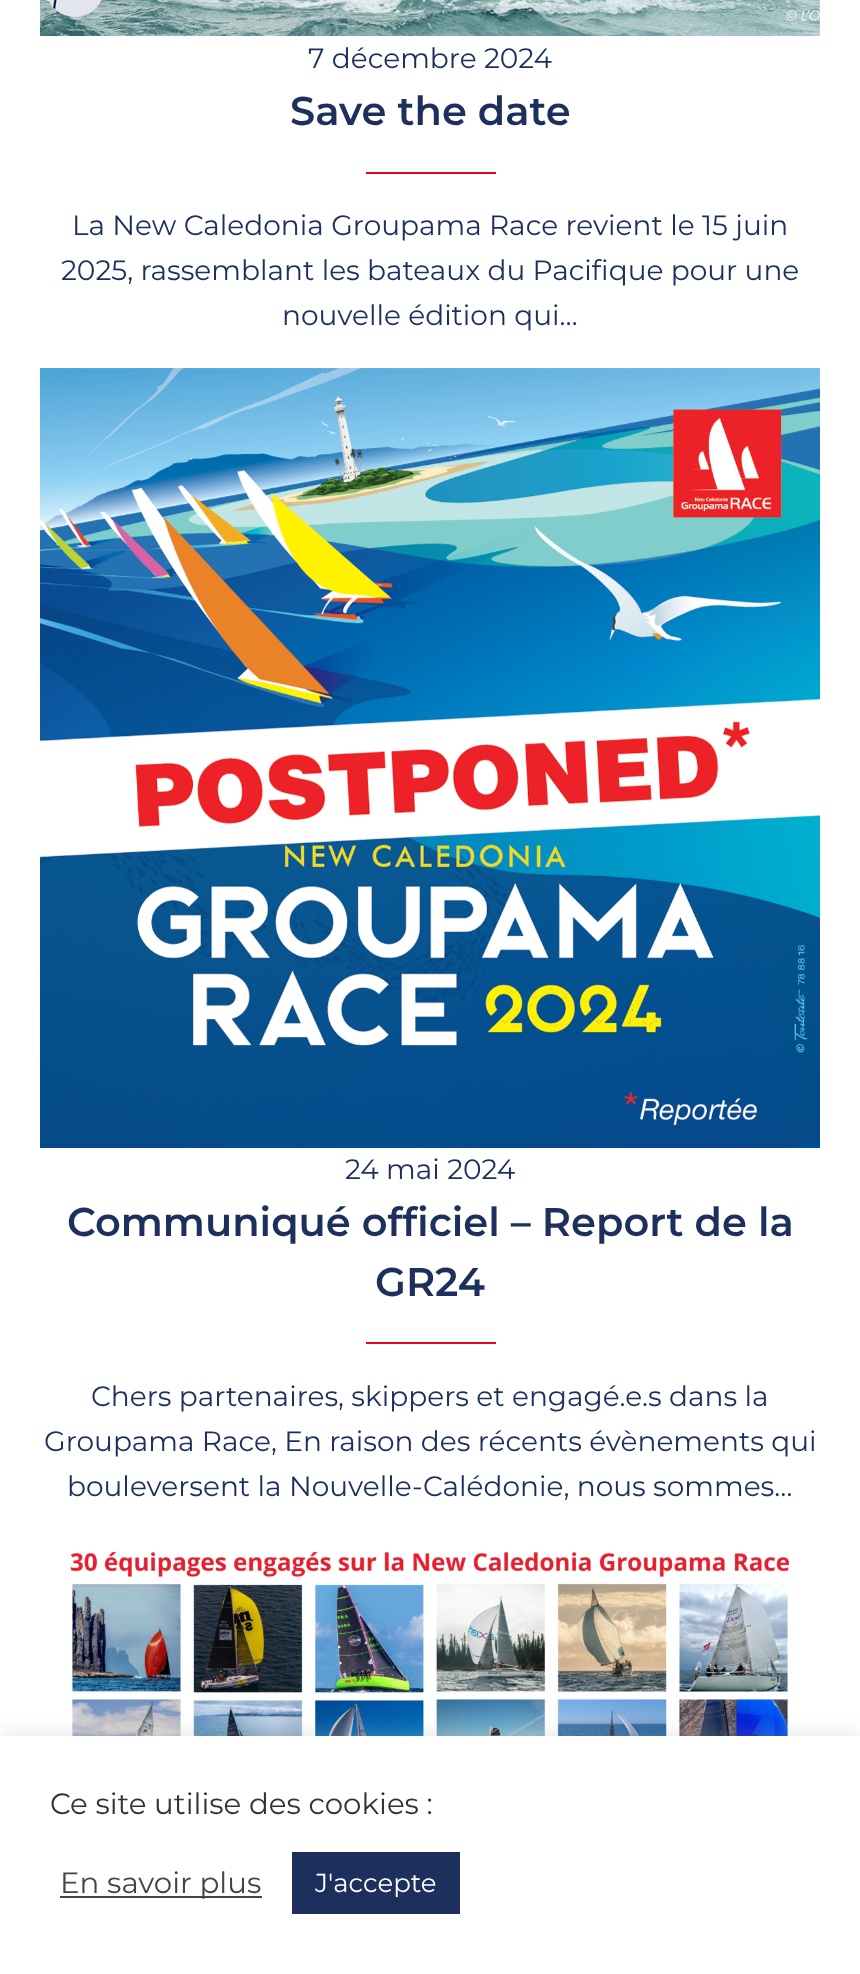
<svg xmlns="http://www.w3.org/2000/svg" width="860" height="1974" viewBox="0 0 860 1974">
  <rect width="100%" height="100%" fill="#fff"/>
  <image x="40" y="0" width="780" height="36" href="img/1.png"/>
  <path d="M366 172h130v2H366z" fill="#e30713"/>
  <image x="40" y="368" width="780" height="780" href="img/2.png"/>
  <path d="M366 1342h130v2H366z" fill="#e30713"/>
  <image x="70" y="1551" width="720" height="185" href="img/3.png"/>
  <path d="M0 1734h860v238H0z" fill="#acabab4d" filter="blur(10px)"/>
  <path d="M0 1736h860v238H0z" fill="#fff"/>
  <path d="M60 1896h202v2H60z" fill="#444"/>
  <path d="M292 1852h168v62H292z" fill="#1c2f5d"/>
  <text x="308" y="68" font-family="Montserrat" font-size="28" fill="#1c2f5d">7 décembre 2024</text>
  <text x="290" y="125" font-family="Montserrat" font-size="40" font-weight="600" fill="#1c2f5d">Save the date</text>
  <g font-family="Montserrat" font-size="28" fill="#1c2f5d">
    <text x="72" y="235">La New Caledonia Groupama Race revient le 15 juin</text>
    <text x="61" y="280">2025, rassemblant les bateaux du Pacifique pour une</text>
    <text x="282" y="325">nouvelle édition qui…</text>
    <text x="345" y="1179">24 mai 2024</text>
  </g>
  <g font-family="Montserrat" font-size="40" font-weight="600" fill="#1c2f5d">
    <text x="67" y="1236">Communiqué officiel – Report de la</text>
    <text x="375" y="1296">GR24</text>
  </g>
  <g font-family="Montserrat" font-size="28" fill="#1c2f5d">
    <text x="91" y="1406">Chers partenaires, skippers et engagé.e.s dans la</text>
    <text x="44" y="1451">Groupama Race, En raison des récents évènements qui</text>
    <text x="67" y="1496">bouleversent la Nouvelle-Calédonie, nous sommes…</text>
  </g>
  <text x="50" y="1814" font-family="Montserrat" font-size="29.3" fill="#333">Ce site utilise des cookies :</text>
  <text x="60" y="1893" font-family="Montserrat" font-size="29.3" fill="#444">En savoir plus</text>
  <text x="315" y="1892" font-family="Montserrat" font-size="26" fill="#fff">J'accepte</text>
</svg>
